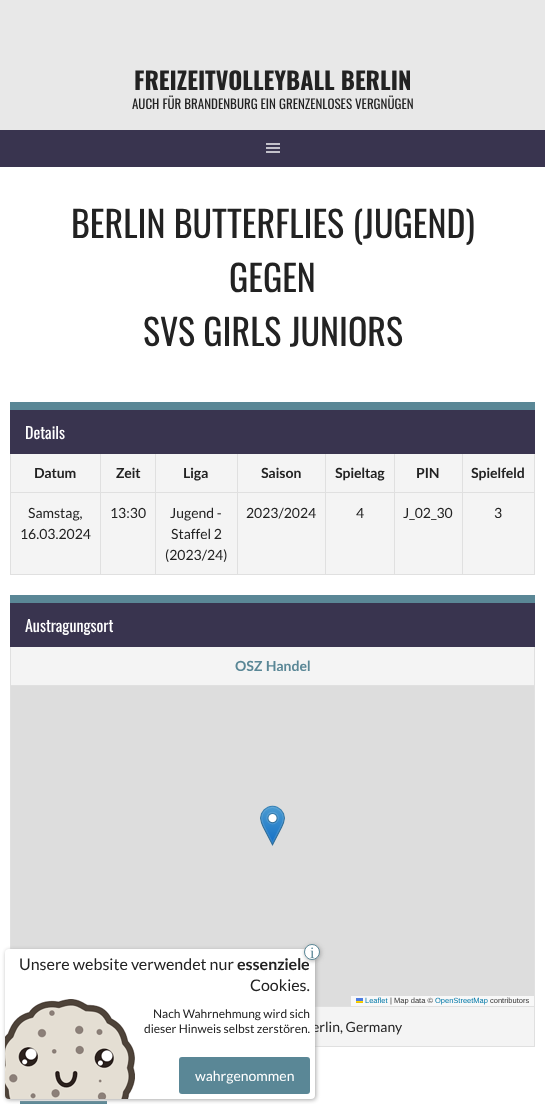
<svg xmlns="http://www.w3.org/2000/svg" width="545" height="1104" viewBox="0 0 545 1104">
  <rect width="100%" height="100%" fill="#e8e8e8"/>
  <path d="M0 130h545v37H0z" fill="#39344f"/>
  <image x="266" y="143" width="14" height="10" href="img/1.png"/>
  <path d="M0 167h545v937H0z" fill="#fff"/>
  <path d="M534 453h1v122H534z" fill="#e0e0e0"/>
  <path d="M10 574h525v1H10z" fill="#e0e0e0"/>
  <path d="M10 453h1v122H10z" fill="#e0e0e0"/>
  <path d="M11 454h523v120H11z" fill="#f4f4f4"/>
  <path d="M462 492h73v1H462z" fill="#e0e0e0"/>
  <path d="M462 492h1v83H462z" fill="#e0e0e0"/>
  <path d="M394 492h69v1H394z" fill="#e0e0e0"/>
  <path d="M394 492h1v83H394z" fill="#e0e0e0"/>
  <path d="M325 492h70v1H325z" fill="#e0e0e0"/>
  <path d="M325 492h1v83H325z" fill="#e0e0e0"/>
  <path d="M237 492h89v1H237z" fill="#e0e0e0"/>
  <path d="M237 492h1v83H237z" fill="#e0e0e0"/>
  <path d="M155 492h83v1H155z" fill="#e0e0e0"/>
  <path d="M155 492h1v83H155z" fill="#e0e0e0"/>
  <path d="M100 492h56v1H100z" fill="#e0e0e0"/>
  <path d="M100 492h1v83H100z" fill="#e0e0e0"/>
  <path d="M10 492h91v1H10z" fill="#e0e0e0"/>
  <path d="M100 453h1v40H100z" fill="#e0e0e0"/>
  <path d="M155 453h1v40H155z" fill="#e0e0e0"/>
  <path d="M237 453h1v40H237z" fill="#e0e0e0"/>
  <path d="M325 453h1v40H325z" fill="#e0e0e0"/>
  <path d="M394 453h1v40H394z" fill="#e0e0e0"/>
  <path d="M462 453h1v40H462z" fill="#e0e0e0"/>
  <path d="M10 410h525v44H10z" fill="#39344f"/>
  <path d="M10 402h525v8H10z" fill="#5a8796"/>
  <path d="M534 646h1v401H534z" fill="#e0e0e0"/>
  <path d="M10 646h1v303H10z" fill="#e0e0e0"/>
  <path d="M10 603h525v44H10z" fill="#39344f"/>
  <path d="M10 595h525v8H10z" fill="#5a8796"/>
  <path d="M11 647h523v399H11z" fill="#f4f4f4"/>
  <path d="M315 1046h220v1H315z" fill="#e0e0e0"/>
  <path d="M10 685h525v1H10z" fill="#e0e0e0"/>
  <path d="M11 686h523v320H11z" fill="#ddd"/>
  <image x="260" y="805" width="25" height="41" href="img/2.png"/>
  <path d="M351 996h183v10H351z" fill="#f8f8f8"/>
  <image x="356" y="998" width="7" height="5" href="img/3.png"/>
  <path d="M315 1006h220v1H315z" fill="#e0e0e0"/>
  <path d="M20 1101h87v3H20z" fill="#5a8796"/>
  <rect x="6" y="950" width="310" height="150" rx="4" fill="#a9a9a9" filter="blur(2px)"/>
  <text x="134" y="90" font-family="Oswald" font-size="24" font-weight="bold" fill="#222">FREIZEITVOLLEYBALL BERLIN</text>
  <text x="132" y="109" font-family="Oswald" font-size="13" fill="#222">AUCH FÜR BRANDENBURG EIN GRENZENLOSES VERGNÜGEN</text>
  <g font-family="Oswald" font-size="36" fill="#222">
    <text x="71" y="238">BERLIN BUTTERFLIES (JUGEND)</text>
    <text x="229" y="292">GEGEN</text>
    <text x="143" y="346">SVS GIRLS JUNIORS</text>
  </g>
  <text x="25" y="439" font-family="Oswald" font-size="16" fill="#fff">Details</text>
  <g font-family="Lato" font-size="14" font-weight="bold" fill="#222">
    <text x="34" y="478">Datum</text>
    <text x="116" y="478">Zeit</text>
    <text x="183" y="478">Liga</text>
    <text x="261" y="478">Saison</text>
    <text x="335" y="478">Spieltag</text>
    <text x="416" y="478">PIN</text>
    <text x="471" y="478">Spielfeld</text>
  </g>
  <g font-family="Lato" font-size="14" fill="#222">
    <text x="28" y="518">Samstag,</text>
    <text x="20" y="539">16.03.2024</text>
    <text x="110" y="518">13:30</text>
    <text x="170" y="518">Jugend -</text>
    <text x="171" y="539">Staffel 2</text>
    <text x="165" y="560">(2023/24)</text>
    <text x="246" y="518">2023/2024</text>
    <text x="356" y="518">4</text>
    <text x="403" y="518">J_02_30</text>
    <text x="494" y="518">3</text>
  </g>
  <text x="25" y="632" font-family="Oswald" font-size="16" fill="#fff">Austragungsort</text>
  <text x="235" y="671" font-family="Lato" font-size="14" font-weight="bold" fill="#5a8796">OSZ Handel</text>
  <text x="365" y="1003" font-family="Liberation Sans" font-size="7.5" fill="#0078a8">Leaflet</text>
  <text x="390" y="1003" font-family="Liberation Sans" font-size="7.5" fill="#333">| Map data ©</text>
  <text x="435" y="1003" font-family="Liberation Sans" font-size="7.5" fill="#0078a8">OpenStreetMap</text>
  <text x="490" y="1003" font-family="Liberation Sans" font-size="7.5" fill="#333">contributors</text>
  <text x="312" y="1032" font-family="Lato" font-size="14" fill="#222">erlin, Germany</text>
  <rect x="5" y="949" width="310" height="150" rx="4" fill="#fff"/>
  <image x="5" y="999" width="130" height="100" href="img/4.png"/>
  <rect x="305" y="945" width="16" height="16" rx="8" fill="#a9a9a9" filter="blur(2px)"/>
  <text x="19" y="970" font-family="Lato" font-size="16" fill="#222">Unsere website verwendet nur</text>
  <text x="237" y="970" font-family="Lato" font-size="16" font-weight="bold" fill="#222">essenziele</text>
  <circle cx="312" cy="952" r="7.5" fill="#fff" stroke="#5a8796"/>
  <text x="310" y="958" font-family="Liberation Serif" font-size="16" fill="#5a8796">i</text>
  <text x="250" y="991" font-family="Lato" font-size="16" fill="#222">Cookies.</text>
  <g font-family="Lato" font-size="12" fill="#222">
    <text x="153" y="1018">Nach Wahrnehmung wird sich</text>
    <text x="144" y="1033">dieser Hinweis selbst zerstören.</text>
  </g>
  <rect x="179" y="1057" width="131" height="37" rx="3" fill="#5a8796"/>
  <text x="195" y="1081" font-family="Lato" font-size="14" fill="#fff">wahrgenommen</text>
</svg>
